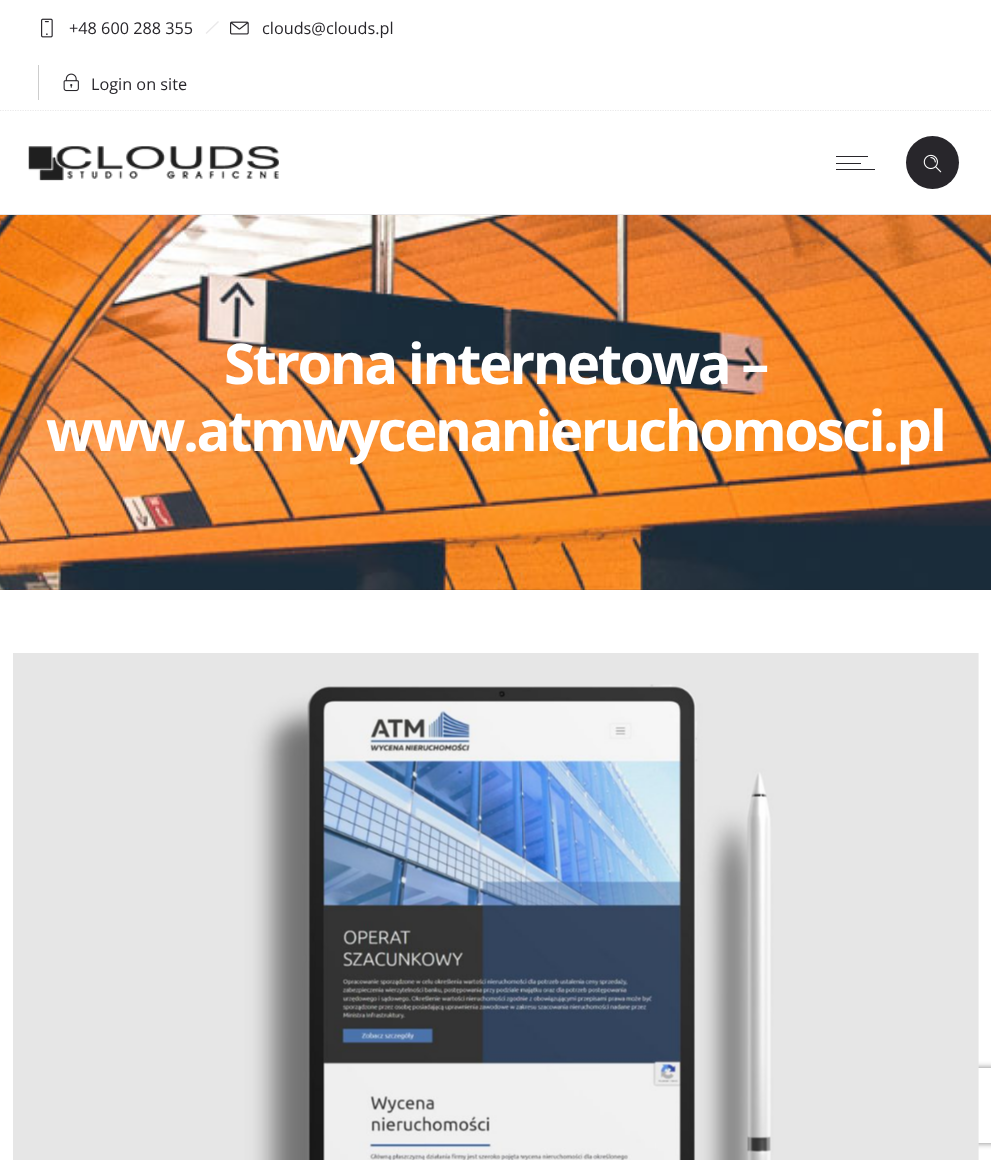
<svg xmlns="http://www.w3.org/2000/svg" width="991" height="1160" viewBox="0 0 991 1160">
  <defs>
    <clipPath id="clip1"><path d="M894 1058H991V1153H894ZM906.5 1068H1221.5C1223 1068 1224 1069 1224 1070.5V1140.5C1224 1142 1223 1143 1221.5 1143H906.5C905 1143 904 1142 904 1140.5V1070.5C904 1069 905 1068 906.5 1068Z" clip-rule="evenodd"/></clipPath>
  </defs>
  <rect width="100%" height="100%" fill="#fff"/>
  <path d="M0 214h991v1H0z" fill="#eae9ea"/>
  <path d="M0 110.5H991" fill="none" stroke="#eae9ea" stroke-width="1.2" stroke-dasharray="1.25 1.25"/>
  <image x="41" y="18" width="12" height="20" href="img/1.png"/>
  <path d="M218 21L219 22L206.5 34L205.5 33Z" fill="#eae9ea"/>
  <image x="230" y="21" width="19" height="14" href="img/2.png"/>
  <path d="M38 65h1v35H38z" fill="#cdcdcd"/>
  <image x="63" y="73" width="16" height="19" href="img/3.png"/>
  <image x="28" y="146" width="251" height="35" href="img/4.png"/>
  <path d="M836 156h32v1H836z" fill="#28262b"/>
  <path d="M836 163h25v1H836z" fill="#28262b"/>
  <path d="M836 169h39v1H836z" fill="#28262b"/>
  <circle cx="932.5" cy="162.5" r="26.5" fill="#28262b"/>
  <image x="923" y="154" width="19" height="19" href="img/5.png"/>
  <image x="0" y="215" width="991" height="375" href="img/6.png"/>
  <path d="M0 589h991v1H0z" fill="#1b1b1b1a"/>
  <g clip-path="url(#clip1)">
    <rect x="904" y="1068" width="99" height="75" rx="2.5" fill="#808080" filter="blur(3px)"/>
  </g>
  <image x="13" y="653" width="966" height="507" href="img/7.png"/>
  <g font-family="Open Sans" font-size="16.25" fill="#28262b">
    <text x="69" y="34">+48 600 288 355</text>
    <text x="262" y="34">clouds@clouds.pl</text>
    <text x="91" y="90">Login on site</text>
  </g>
  <g font-family="Open Sans" font-size="56.25" font-weight="bold" letter-spacing="-2.5" fill="#fff">
    <text x="224" y="384">Strona internetowa –</text>
    <text x="46" y="451">www.atmwycenanieruchomosci.pl</text>
  </g>
</svg>
